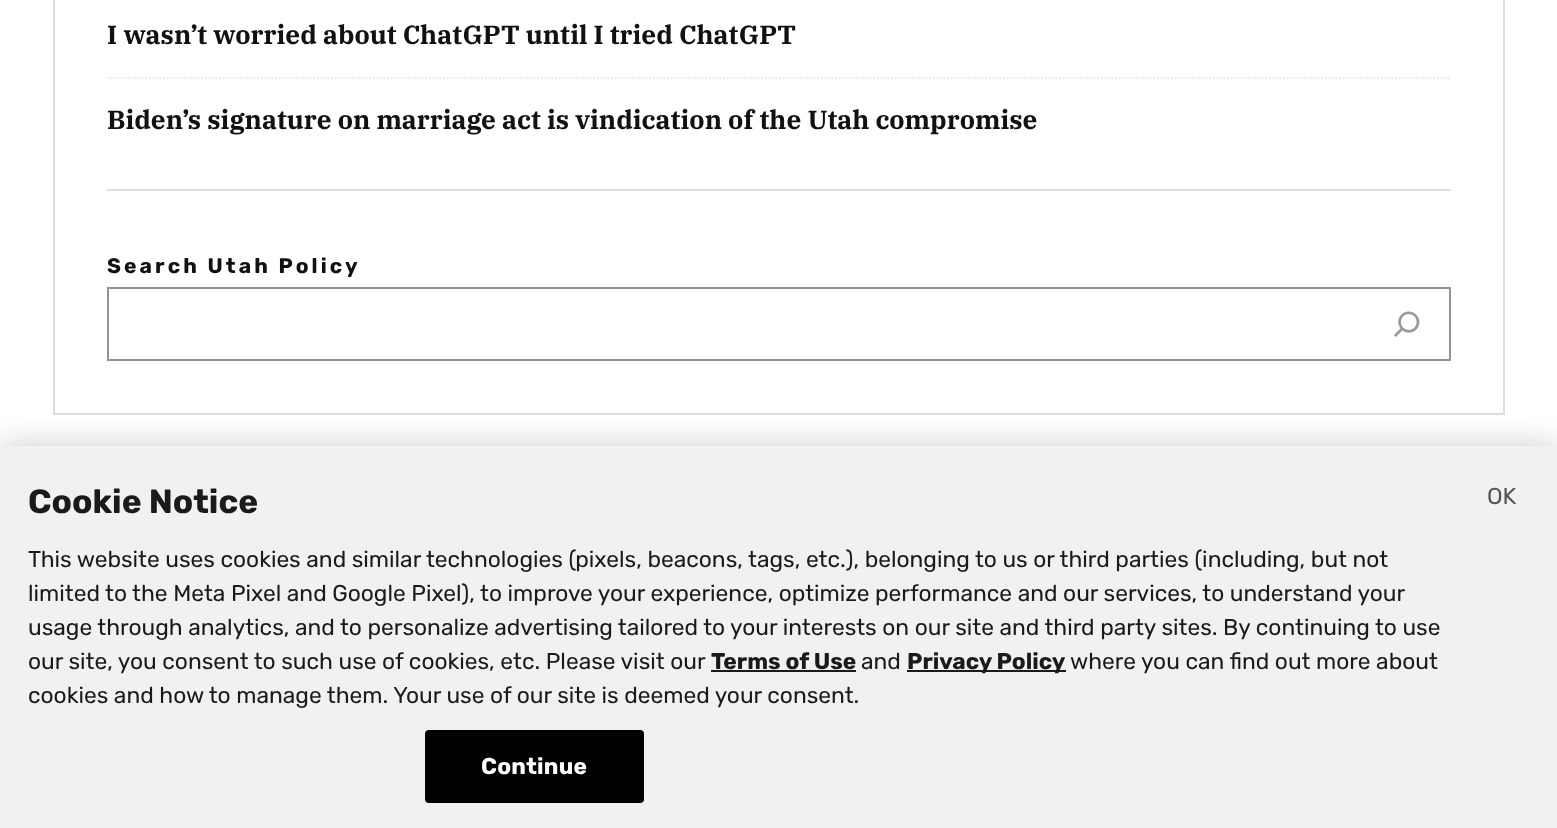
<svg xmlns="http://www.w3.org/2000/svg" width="1557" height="828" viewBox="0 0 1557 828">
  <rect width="100%" height="100%" fill="#fff"/>
  <path d="M54 -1h1450v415H54z" fill="none" stroke="#ddd" stroke-width="2"/>
  <path d="M107 189h1344v2H107z" fill="#ddd"/>
  <path d="M107 78H1451" fill="none" stroke="#e9e9e9" stroke-width="1.8" stroke-dasharray="1.75 1.75"/>
  <path d="M108 288h1342v72H108z" fill="none" stroke="#949494" stroke-width="2"/>
  <image x="1394" y="311" width="26" height="26" href="img/1.png"/>
  <path d="M0 446h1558v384H0z" fill="#00000033" filter="blur(16px)"/>
  <path d="M0 446h1557v382H0z" fill="#f3f1f0"/>
  <path d="M711 670h145v2H711z" fill="#1a1a19"/>
  <path d="M907 670h159v2H907z" fill="#1a1a19"/>
  <rect x="426" y="731" width="217" height="71" rx="3" fill="#000" stroke="#000" stroke-width="2"/>
  <g font-family="IBM Plex Serif" font-size="26.25" font-weight="bold" fill="#111">
    <text x="107" y="44">I wasn’t worried about ChatGPT until I tried ChatGPT</text>
    <text x="107" y="129">Biden’s signature on marriage act is vindication of the Utah compromise</text>
  </g>
  <text x="107" y="273" font-family="Rubik" font-size="21" font-weight="bold" letter-spacing="3.1" fill="#111">Search Utah Policy</text>
  <text x="28" y="513" font-family="Rubik" font-size="33.5" font-weight="bold" fill="#1a1a19">Cookie Notice</text>
  <g font-family="Rubik" font-size="22.75" fill="#1a1a19">
    <text x="28" y="567">This website uses cookies and similar technologies (pixels, beacons, tags, etc.), belonging to us or third parties (including, but not</text>
    <text x="28" y="601">limited to the Meta Pixel and Google Pixel), to improve your experience, optimize performance and our services, to understand your</text>
    <text x="28" y="635">usage through analytics, and to personalize advertising tailored to your interests on our site and third party sites. By continuing to use</text>
    <text x="28" y="669">our site, you consent to such use of cookies, etc. Please visit our</text>
  </g>
  <text x="711" y="669" font-family="Rubik" font-size="22.75" font-weight="bold" fill="#1a1a19">Terms of Use</text>
  <text x="861" y="669" font-family="Rubik" font-size="22.75" fill="#1a1a19">and</text>
  <text x="907" y="669" font-family="Rubik" font-size="22.75" font-weight="bold" fill="#1a1a19">Privacy Policy</text>
  <g font-family="Rubik" font-size="22.75" fill="#1a1a19">
    <text x="1070" y="669">where you can find out more about</text>
    <text x="28" y="703">cookies and how to manage them. Your use of our site is deemed your consent.</text>
  </g>
  <text x="481" y="774" font-family="Rubik" font-size="22.75" font-weight="bold" letter-spacing="0.25" fill="#fff">Continue</text>
  <text x="1487" y="504" font-family="Rubik" font-size="23" fill="#555">OK</text>
</svg>
